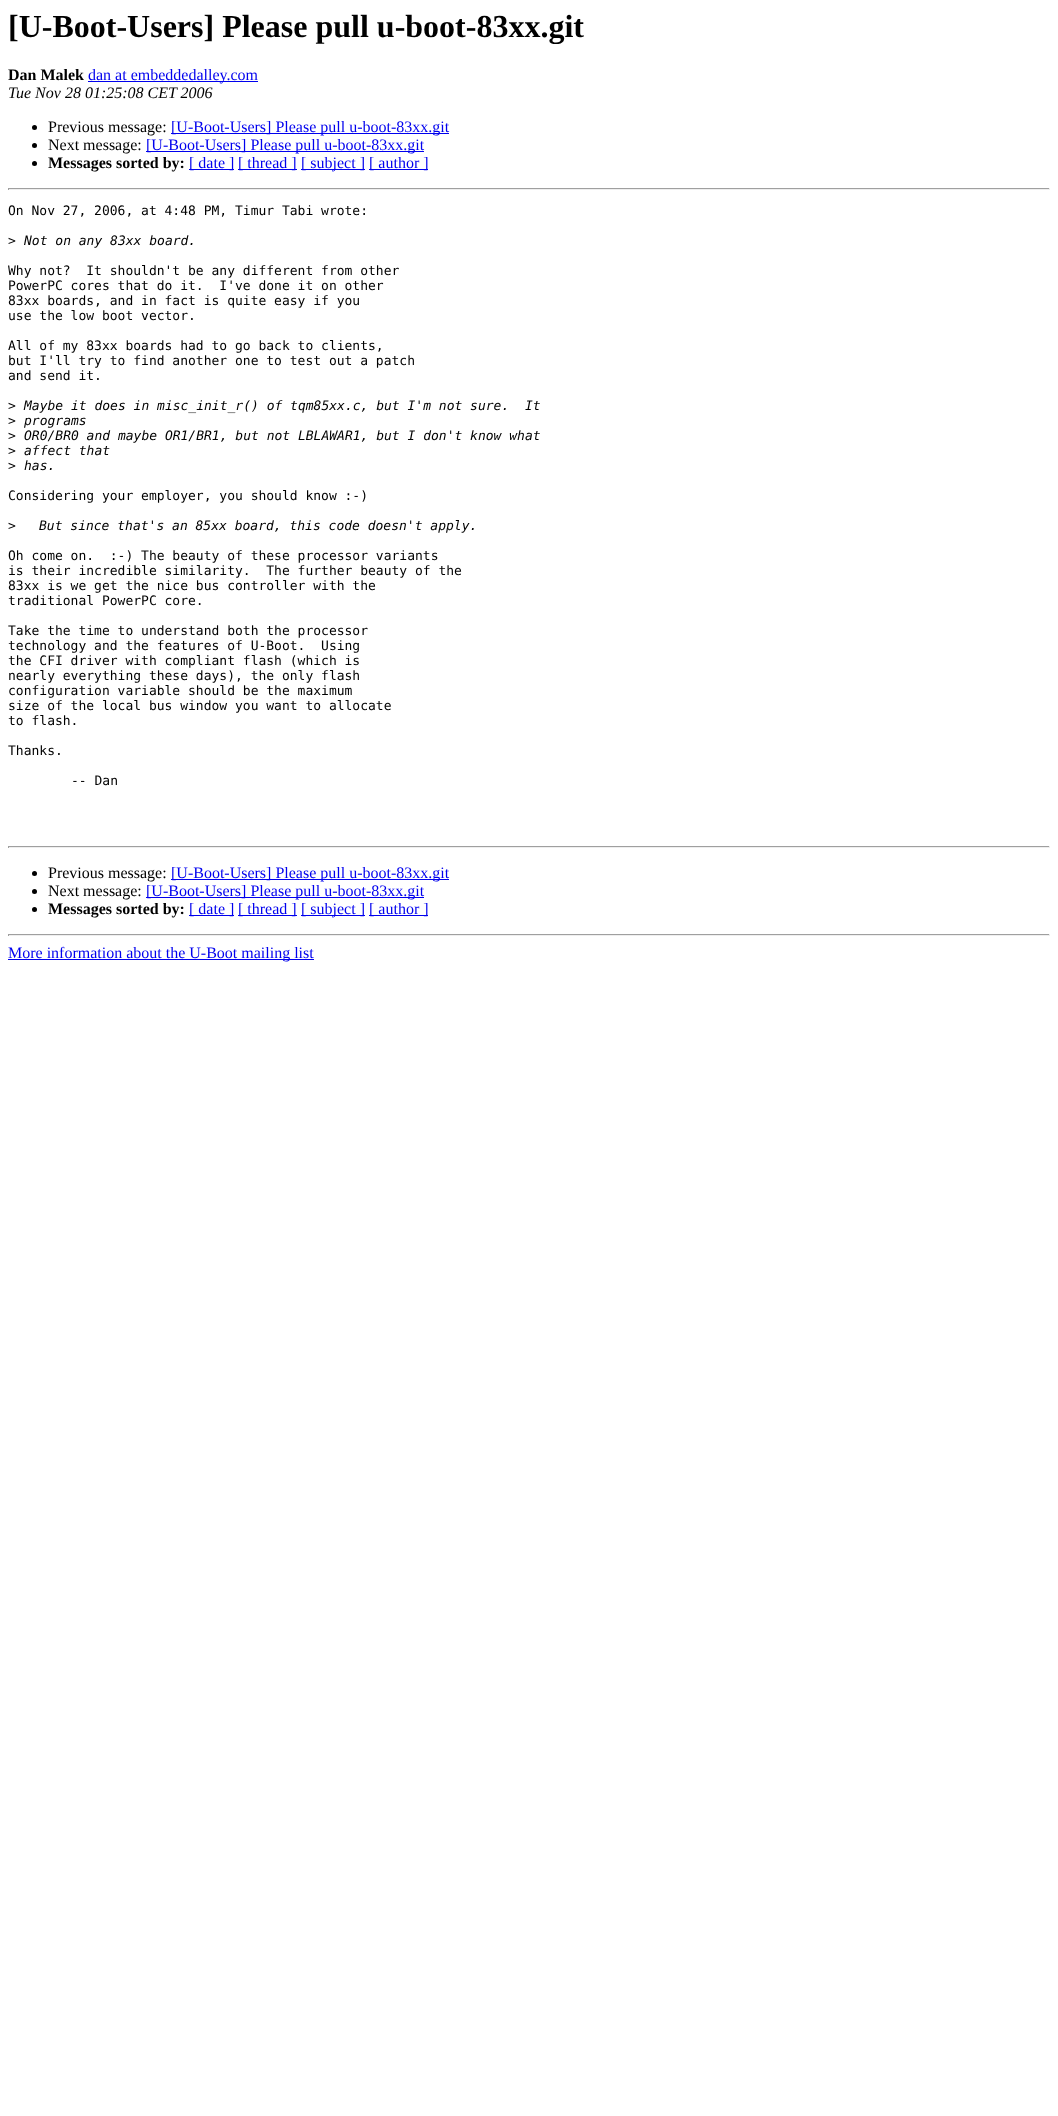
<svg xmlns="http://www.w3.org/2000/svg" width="1058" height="2116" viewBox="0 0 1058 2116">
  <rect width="100%" height="100%" fill="#fff"/>
  <path d="M88 81h170v1H88z" fill="#00e"/>
  <circle cx="34.5" cy="127.5" r="2.5" fill="#000"/>
  <path d="M171 133h278v1H171z" fill="#00e"/>
  <circle cx="34.5" cy="145.5" r="2.5" fill="#000"/>
  <path d="M146 151h278v1H146z" fill="#00e"/>
  <circle cx="34.5" cy="163.5" r="2.5" fill="#000"/>
  <path d="M189 169h45v1H189z" fill="#00e"/>
  <path d="M238 169h59v1H238z" fill="#00e"/>
  <path d="M301 169h64v1H301z" fill="#00e"/>
  <path d="M369 169h59v1H369z" fill="#00e"/>
  <path d="M8 188h1042v1H8z" fill="#9f9f9f"/>
  <path d="M1049 188h1v2H1049z" fill="#eee"/>
  <path d="M8 189h1042v1H8z" fill="#eee"/>
  <path d="M8 188h1v2H8z" fill="#9f9f9f"/>
  <path d="M8 846h1042v1H8z" fill="#9f9f9f"/>
  <path d="M1049 846h1v2H1049z" fill="#eee"/>
  <path d="M8 847h1042v1H8z" fill="#eee"/>
  <path d="M8 846h1v2H8z" fill="#9f9f9f"/>
  <circle cx="34.5" cy="873.5" r="2.5" fill="#000"/>
  <path d="M171 879h278v1H171z" fill="#00e"/>
  <circle cx="34.5" cy="891.5" r="2.5" fill="#000"/>
  <path d="M146 897h278v1H146z" fill="#00e"/>
  <circle cx="34.5" cy="909.5" r="2.5" fill="#000"/>
  <path d="M189 915h45v1H189z" fill="#00e"/>
  <path d="M238 915h59v1H238z" fill="#00e"/>
  <path d="M301 915h64v1H301z" fill="#00e"/>
  <path d="M369 915h59v1H369z" fill="#00e"/>
  <path d="M8 934h1042v1H8z" fill="#9f9f9f"/>
  <path d="M1049 934h1v2H1049z" fill="#eee"/>
  <path d="M8 935h1042v1H8z" fill="#eee"/>
  <path d="M8 934h1v2H8z" fill="#9f9f9f"/>
  <path d="M8 959h306v1H8z" fill="#00e"/>
  <text x="8" y="37" font-family="Liberation Serif" font-size="32" font-weight="bold" fill="#000">[U-Boot-Users] Please pull u-boot-83xx.git</text>
  <text x="8" y="80" font-family="Liberation Serif" font-size="16" font-weight="bold" fill="#000">Dan Malek</text>
  <text x="88" y="80" font-family="Liberation Serif" font-size="16" fill="#00e">dan at embeddedalley.com</text>
  <text x="8" y="98" font-family="Liberation Serif" font-size="16" font-style="italic" fill="#000">Tue Nov 28 01:25:08 CET 2006</text>
  <text x="48" y="132" font-family="Liberation Serif" font-size="16" fill="#000">Previous message:</text>
  <text x="171" y="132" font-family="Liberation Serif" font-size="16" fill="#00e">[U-Boot-Users] Please pull u-boot-83xx.git</text>
  <text x="48" y="150" font-family="Liberation Serif" font-size="16" fill="#000">Next message:</text>
  <text x="146" y="150" font-family="Liberation Serif" font-size="16" fill="#00e">[U-Boot-Users] Please pull u-boot-83xx.git</text>
  <text x="48" y="168" font-family="Liberation Serif" font-size="16" font-weight="bold" fill="#000">Messages sorted by:</text>
  <g font-family="Liberation Serif" font-size="16" fill="#00e">
    <text x="189" y="168">[ date ]</text>
    <text x="238" y="168">[ thread ]</text>
    <text x="301" y="168">[ subject ]</text>
    <text x="369" y="168">[ author ]</text>
  </g>
  <g font-family="DejaVu Sans Mono" font-size="13" fill="#000">
    <text x="8" y="215">On Nov 27, 2006, at 4:48 PM, Timur Tabi wrote:</text>
    <text x="8" y="245">&gt;</text>
  </g>
  <text x="24" y="245" font-family="DejaVu Sans Mono" font-size="13" font-style="italic" fill="#000">Not on any 83xx board.</text>
  <g font-family="DejaVu Sans Mono" font-size="13" fill="#000">
    <text x="8" y="275" xml:space="preserve">Why not?  It shouldn't be any different from other</text>
    <text x="8" y="290" xml:space="preserve">PowerPC cores that do it.  I've done it on other</text>
    <text x="8" y="305">83xx boards, and in fact is quite easy if you</text>
    <text x="8" y="320">use the low boot vector.</text>
    <text x="8" y="350">All of my 83xx boards had to go back to clients,</text>
    <text x="8" y="365">but I'll try to find another one to test out a patch</text>
    <text x="8" y="380">and send it.</text>
    <text x="8" y="410">&gt;</text>
  </g>
  <text x="24" y="410" font-family="DejaVu Sans Mono" font-size="13" font-style="italic" fill="#000" xml:space="preserve">Maybe it does in misc_init_r() of tqm85xx.c, but I'm not sure.  It</text>
  <text x="8" y="425" font-family="DejaVu Sans Mono" font-size="13" fill="#000">&gt;</text>
  <text x="24" y="425" font-family="DejaVu Sans Mono" font-size="13" font-style="italic" fill="#000">programs</text>
  <text x="8" y="440" font-family="DejaVu Sans Mono" font-size="13" fill="#000">&gt;</text>
  <text x="24" y="440" font-family="DejaVu Sans Mono" font-size="13" font-style="italic" fill="#000">OR0/BR0 and maybe OR1/BR1, but not LBLAWAR1, but I don't know what</text>
  <text x="8" y="455" font-family="DejaVu Sans Mono" font-size="13" fill="#000">&gt;</text>
  <text x="24" y="455" font-family="DejaVu Sans Mono" font-size="13" font-style="italic" fill="#000">affect that</text>
  <text x="8" y="470" font-family="DejaVu Sans Mono" font-size="13" fill="#000">&gt;</text>
  <text x="24" y="470" font-family="DejaVu Sans Mono" font-size="13" font-style="italic" fill="#000">has.</text>
  <g font-family="DejaVu Sans Mono" font-size="13" fill="#000">
    <text x="8" y="500">Considering your employer, you should know :-)</text>
    <text x="8" y="530">&gt;</text>
  </g>
  <text x="39" y="530" font-family="DejaVu Sans Mono" font-size="13" font-style="italic" fill="#000">But since that's an 85xx board, this code doesn't apply.</text>
  <g font-family="DejaVu Sans Mono" font-size="13" fill="#000">
    <text x="8" y="560" xml:space="preserve">Oh come on.  :-) The beauty of these processor variants</text>
    <text x="8" y="575" xml:space="preserve">is their incredible similarity.  The further beauty of the</text>
    <text x="8" y="590">83xx is we get the nice bus controller with the</text>
    <text x="8" y="605">traditional PowerPC core.</text>
    <text x="8" y="635">Take the time to understand both the processor</text>
    <text x="8" y="650" xml:space="preserve">technology and the features of U-Boot.  Using</text>
    <text x="8" y="665">the CFI driver with compliant flash (which is</text>
    <text x="8" y="680">nearly everything these days), the only flash</text>
    <text x="8" y="695">configuration variable should be the maximum</text>
    <text x="8" y="710">size of the local bus window you want to allocate</text>
    <text x="8" y="725">to flash.</text>
    <text x="8" y="755">Thanks.</text>
    <text x="71" y="785">-- Dan</text>
  </g>
  <text x="48" y="878" font-family="Liberation Serif" font-size="16" fill="#000">Previous message:</text>
  <text x="171" y="878" font-family="Liberation Serif" font-size="16" fill="#00e">[U-Boot-Users] Please pull u-boot-83xx.git</text>
  <text x="48" y="896" font-family="Liberation Serif" font-size="16" fill="#000">Next message:</text>
  <text x="146" y="896" font-family="Liberation Serif" font-size="16" fill="#00e">[U-Boot-Users] Please pull u-boot-83xx.git</text>
  <text x="48" y="914" font-family="Liberation Serif" font-size="16" font-weight="bold" fill="#000">Messages sorted by:</text>
  <g font-family="Liberation Serif" font-size="16" fill="#00e">
    <text x="189" y="914">[ date ]</text>
    <text x="238" y="914">[ thread ]</text>
    <text x="301" y="914">[ subject ]</text>
    <text x="369" y="914">[ author ]</text>
    <text x="8" y="958">More information about the U-Boot mailing list</text>
  </g>
</svg>
